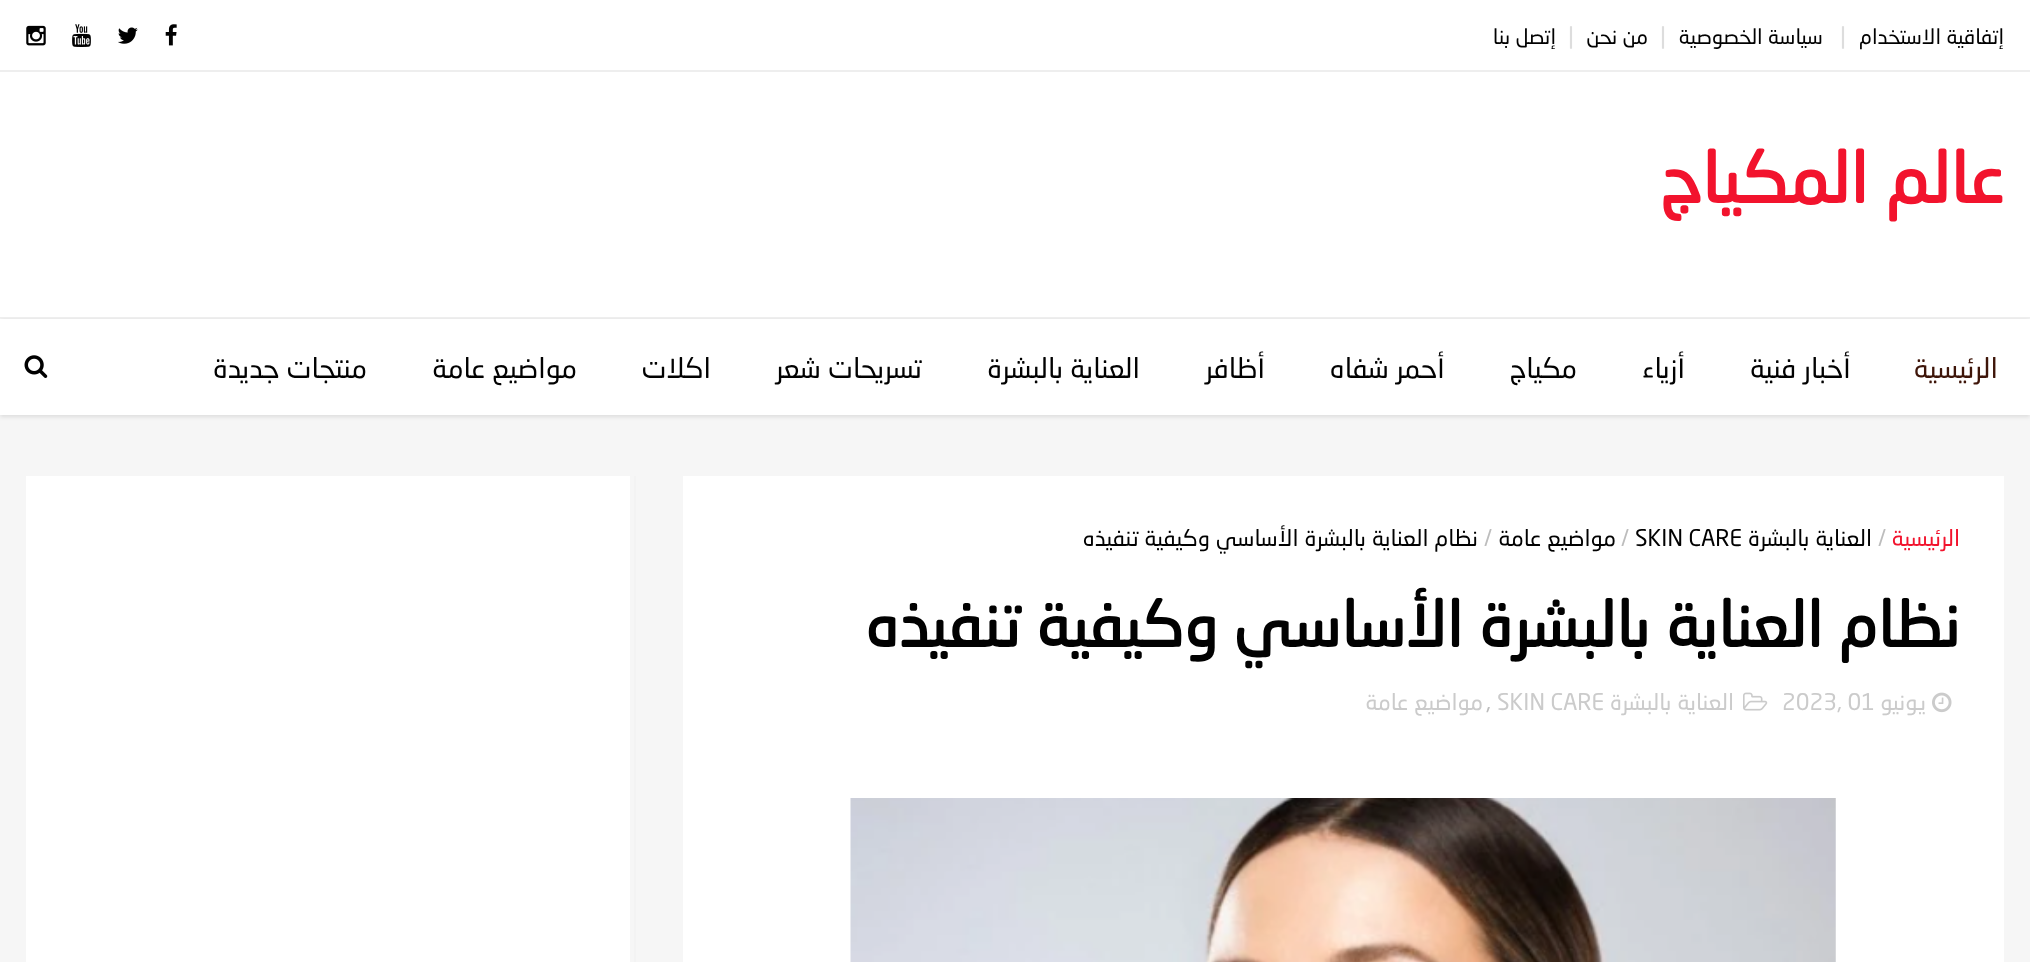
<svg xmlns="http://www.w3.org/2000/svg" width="2030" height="962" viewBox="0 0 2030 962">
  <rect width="100%" height="100%" fill="#f6f6f6"/>
  <path d="M0 0h2030v70H0z" fill="#fff"/>
  <path d="M0 70h2030v2H0z" fill="#eee"/>
  <image x="165" y="24" width="12" height="22" href="img/1.png"/>
  <image x="118" y="27" width="20" height="17" href="img/2.png"/>
  <image x="72" y="24" width="19" height="23" href="img/3.png"/>
  <image x="26" y="25" width="20" height="21" href="img/4.png"/>
  <path d="M0 319h2030v98H0z" fill="#0000001a" filter="blur(2px)"/>
  <path d="M0 72h2030v245H0z" fill="#fff"/>
  <path d="M0 319h2030v96H0z" fill="#fff"/>
  <path d="M0 317h2030v1H0z" fill="#eee"/>
  <image x="24" y="355" width="24" height="23" href="img/5.png"/>
  <path d="M634 476h2v486H634z" fill="#f3f3f3"/>
  <path d="M683 476h1321v486H683z" fill="#fff"/>
  <image x="1932" y="692" width="20" height="21" href="img/6.png"/>
  <image x="1743" y="692" width="25" height="19" href="img/7.png"/>
  <image x="850" y="798" width="986" height="164" href="img/8.png"/>
  <path d="M26 476h604v486H26z" fill="#fff"/>
  <text x="2004" y="44" font-family="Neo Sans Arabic" font-size="21" direction="rtl" fill="#010101">إتفاقية الاستخدام</text>
  <text x="1840" y="44" font-family="Neo Sans Arabic" font-size="24" fill="#ddd">|</text>
  <text x="1823" y="44" font-family="Neo Sans Arabic" font-size="21" direction="rtl" fill="#010101">سياسة الخصوصية</text>
  <text x="1660" y="44" font-family="Neo Sans Arabic" font-size="24" fill="#ddd">|</text>
  <text x="1648" y="44" font-family="Neo Sans Arabic" font-size="21" direction="rtl" fill="#010101">من نحن</text>
  <text x="1568" y="44" font-family="Neo Sans Arabic" font-size="24" fill="#ddd">|</text>
  <text x="1556" y="44" font-family="Neo Sans Arabic" font-size="21" direction="rtl" fill="#010101">إتصل بنا</text>
  <text x="2004" y="203" font-family="Neo Sans Arabic" font-size="70" font-weight="bold" direction="rtl" fill="#f2132d">عالم المكياج</text>
  <text x="1998" y="378" font-family="Neo Sans Arabic" font-size="28" direction="rtl" fill="#3e1509">الرئيسية</text>
  <g font-family="Neo Sans Arabic" font-size="28" direction="rtl" fill="#010101">
    <text x="1851" y="378">أخبار فنية</text>
    <text x="1685" y="378">أزياء</text>
    <text x="1577" y="378">مكياج</text>
    <text x="1445" y="378">أحمر شفاه</text>
    <text x="1265" y="378">أظافر</text>
    <text x="1140" y="378">العناية بالبشرة</text>
    <text x="922" y="378">تسريحات شعر</text>
    <text x="711" y="378">اكلات</text>
    <text x="577" y="378">مواضيع عامة</text>
    <text x="367" y="378">منتجات جديدة</text>
  </g>
  <text x="1960" y="546" font-family="Neo Sans Arabic" font-size="22.75" direction="rtl" fill="#f2132d">الرئيسية</text>
  <text x="1878" y="546" font-family="Neo Sans Arabic" font-size="22.75" fill="#bdbdbd">/</text>
  <text x="1872" y="546" font-family="Neo Sans Arabic" font-size="22.75" direction="rtl" fill="#010101">العناية بالبشرة</text>
  <text x="1635" y="546" font-family="Neo Sans Arabic" font-size="22.75" fill="#010101">SKIN CARE</text>
  <text x="1621" y="546" font-family="Neo Sans Arabic" font-size="22.75" fill="#bdbdbd">/</text>
  <text x="1616" y="546" font-family="Neo Sans Arabic" font-size="22.75" direction="rtl" fill="#010101">مواضيع عامة</text>
  <text x="1484" y="546" font-family="Neo Sans Arabic" font-size="22.75" fill="#bdbdbd">/</text>
  <text x="1478" y="546" font-family="Neo Sans Arabic" font-size="22.75" direction="rtl" fill="#010101">نظام العناية بالبشرة الأساسي وكيفية تنفيذه</text>
  <text x="1960" y="647" font-family="Neo Sans Arabic" font-size="63" font-weight="bold" direction="rtl" fill="#010101">نظام العناية بالبشرة الأساسي وكيفية تنفيذه</text>
  <text x="1926" y="710" font-family="Neo Sans Arabic" font-size="22.75" direction="rtl" fill="#cbcbcb">يونيو</text>
  <text x="1782" y="710" font-family="Neo Sans Arabic" font-size="22.75" fill="#cbcbcb">2023, 01</text>
  <text x="1734" y="710" font-family="Neo Sans Arabic" font-size="22.75" direction="rtl" fill="#cbcbcb">العناية بالبشرة</text>
  <text x="1497" y="710" font-family="Neo Sans Arabic" font-size="22.75" fill="#cbcbcb">SKIN CARE</text>
  <text x="1486" y="710" font-family="Neo Sans Arabic" font-size="22.75" fill="#bdbdbd">,</text>
  <text x="1483" y="710" font-family="Neo Sans Arabic" font-size="22.75" direction="rtl" fill="#cbcbcb">مواضيع عامة</text>
</svg>
